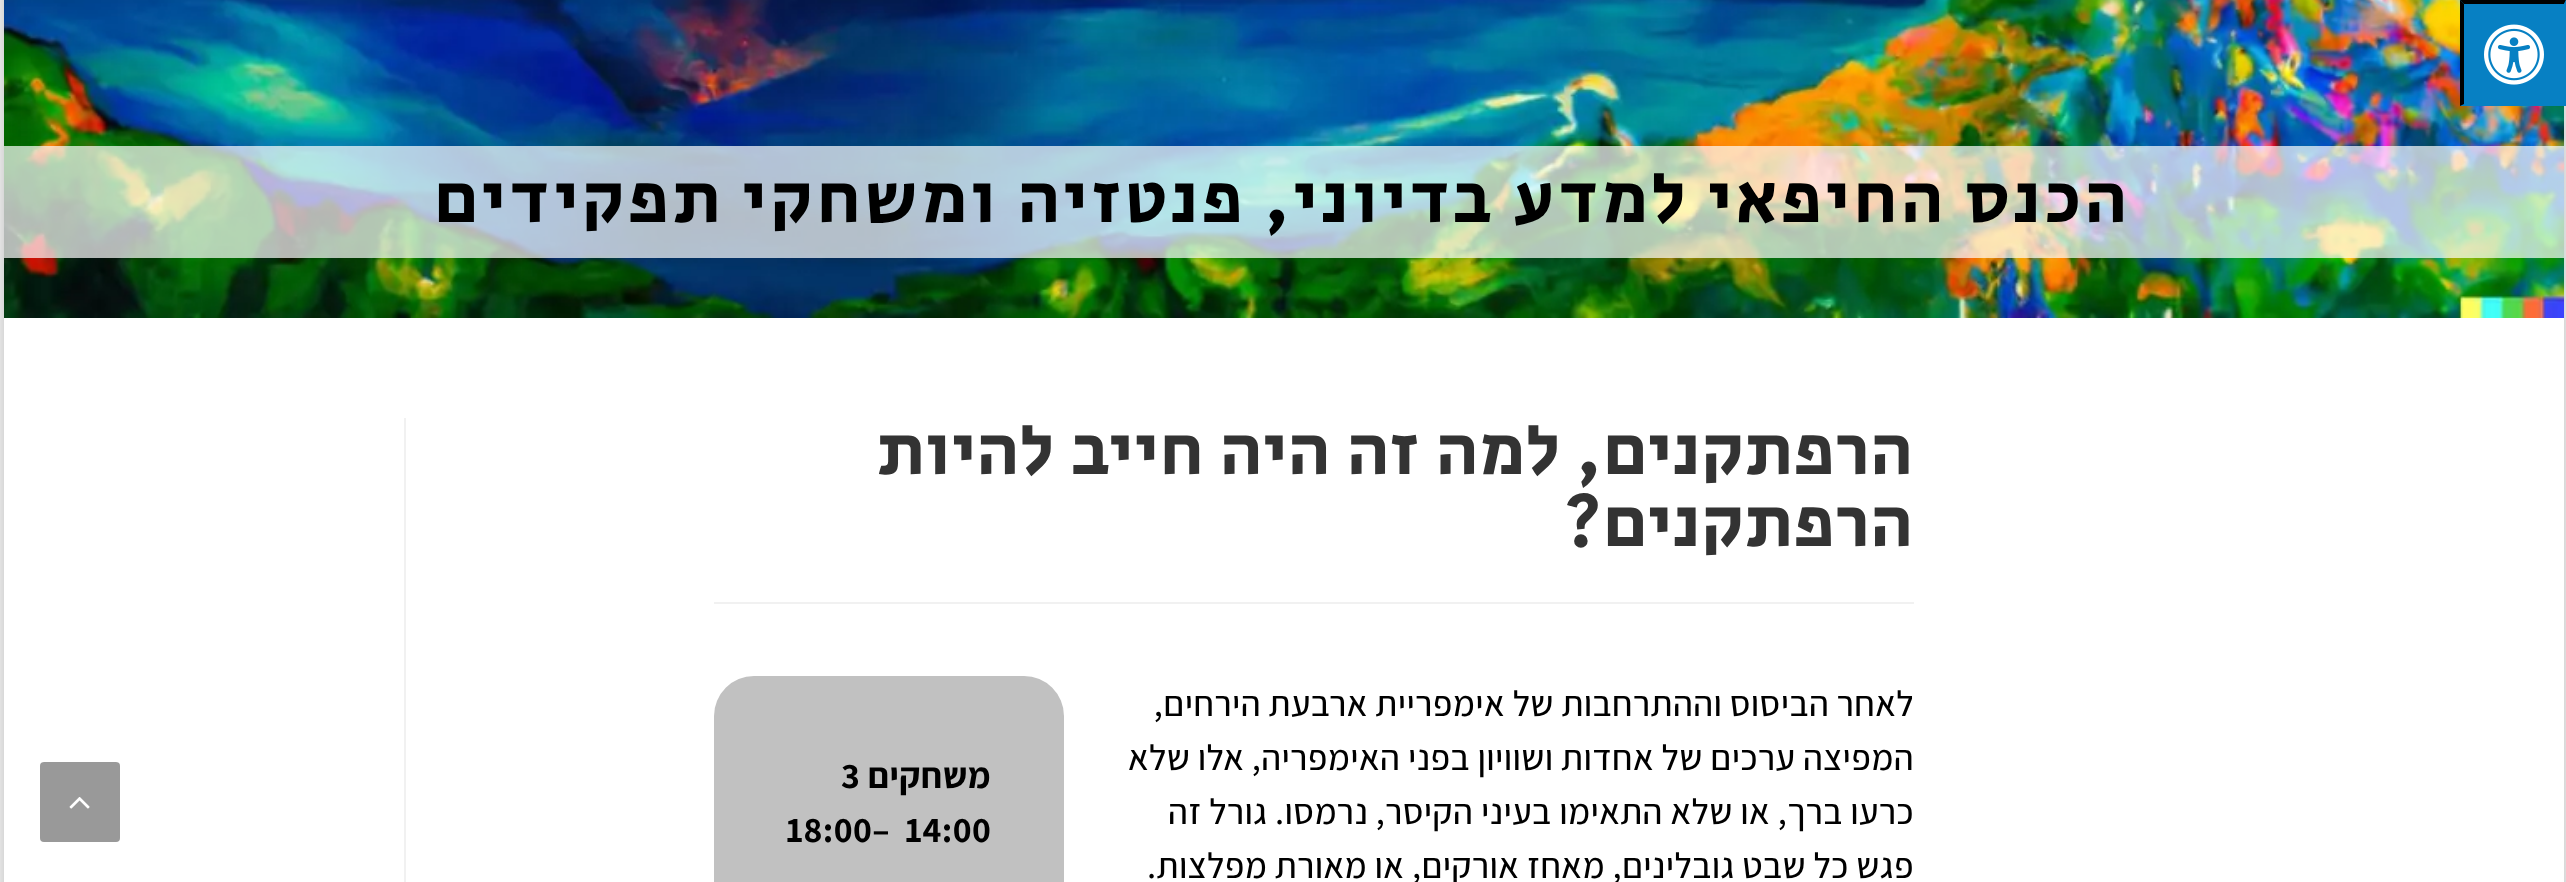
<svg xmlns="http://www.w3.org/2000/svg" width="2566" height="882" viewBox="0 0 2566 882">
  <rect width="100%" height="100%" fill="#e9e9e9"/>
  <path d="M4 -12h2560v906H4z" fill="#00000026" filter="blur(4px)"/>
  <image x="4" y="0" width="2560" height="318" href="img/2.png"/>
  <path d="M2460 0h106v106H2460z" fill="#0780c3"/>
  <path d="M2460 0H2566L2564 4H2464Z" fill="#000"/>
  <path d="M2566 0V106L2564 104V4Z" fill="#0780c3"/>
  <path d="M2460 106V0L2464 4V104Z" fill="#000"/>
  <image x="2484" y="24" width="60" height="61" href="img/1.png"/>
  <path d="M4 318h2560v564H4z" fill="#fff"/>
  <path d="M4 146h2560v112H4z" fill="#ffffffb3"/>
  <path d="M404 418h2v464H404z" fill="#f1f1f1"/>
  <path d="M714 602h1200v2H714z" fill="#f1f1f1"/>
  <rect x="714" y="676" width="350" height="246" rx="40" fill="#c1c1c1"/>
  <rect x="40" y="762" width="80" height="80" rx="4" fill="#999"/>
  <image x="69" y="797" width="21" height="12" href="img/3.png"/>
  <text x="2131" y="222" font-family="Secular One" font-size="72" letter-spacing="4" direction="rtl" fill="#000">הכנס החיפאי למדע בדיוני, פנטזיה ומשחקי תפקידים</text>
  <g font-family="Secular One" font-size="72" letter-spacing="1.2" direction="rtl" fill="#333">
    <text x="1914" y="474">הרפתקנים, למה זה היה חייב להיות</text>
    <text x="1914" y="546">הרפתקנים?</text>
  </g>
  <g font-family="Assistant" font-size="36" font-weight="500" letter-spacing="0.4" direction="rtl" fill="#000">
    <text x="1914" y="716">לאחר הביסוס וההתרחבות של אימפריית ארבעת הירחים,</text>
    <text x="1914" y="770">המפיצה ערכים של אחדות ושוויון בפני האימפריה, אלו שלא</text>
    <text x="1914" y="824">כרעו ברך, או שלא התאימו בעיני הקיסר, נרמסו. גורל זה</text>
    <text x="1914" y="878">פגש כל שבט גובלינים, מאחז אורקים, או מאורת מפלצות.</text>
  </g>
  <text x="991" y="788" font-family="Assistant" font-size="36" font-weight="bold" letter-spacing="0.4" direction="rtl" fill="#000">משחקים</text>
  <g font-family="Assistant" font-size="36" font-weight="bold" letter-spacing="0.4" fill="#000">
    <text x="841" y="788">3</text>
    <text x="905" y="842">14:00</text>
    <text x="786" y="842">18:00–</text>
  </g>
</svg>
